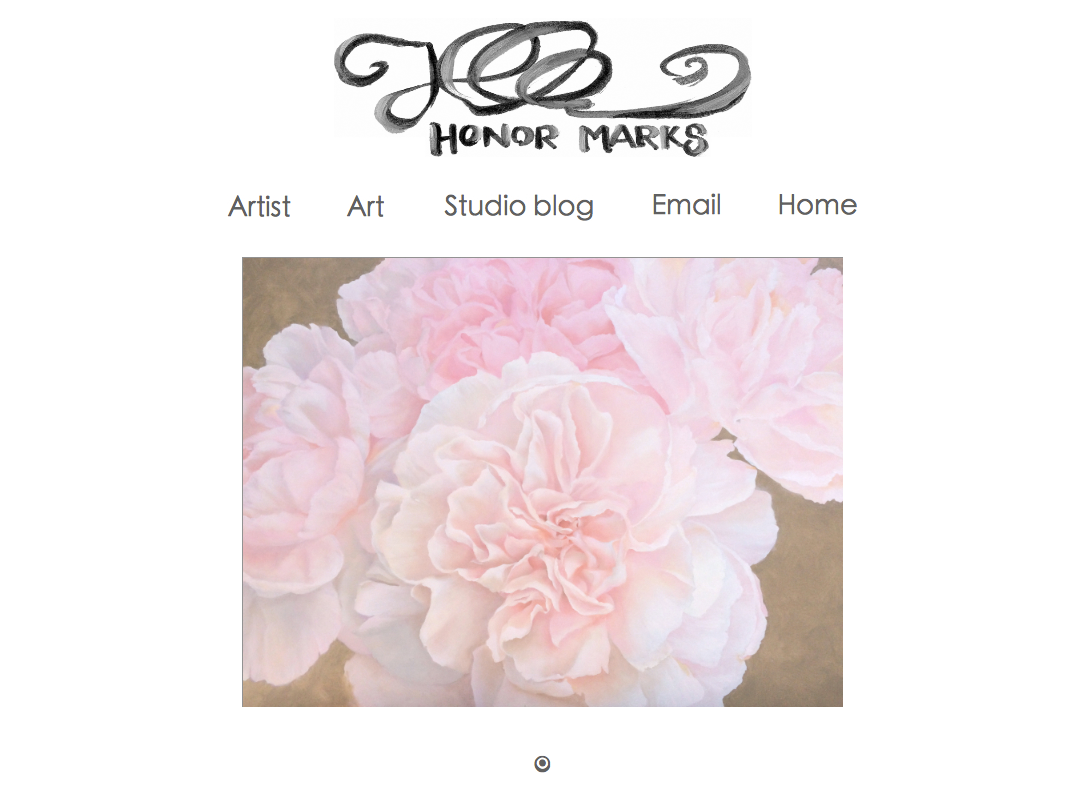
<svg xmlns="http://www.w3.org/2000/svg" width="1084" height="804" viewBox="0 0 1084 804">
  <rect width="100%" height="100%" fill="#fff"/>
  <image x="334" y="18" width="418" height="139" href="img/1.png"/>
  <image x="227" y="195" width="64" height="22" href="img/2.png"/>
  <image x="346" y="195" width="39" height="22" href="img/3.png"/>
  <image x="444" y="194" width="149" height="27" href="img/4.png"/>
  <image x="653" y="193" width="68" height="22" href="img/5.png"/>
  <image x="779" y="194" width="78" height="21" href="img/6.png"/>
  <image x="242" y="257" width="601" height="450" href="img/7.png"/>
  <image x="534" y="755" width="17" height="18" href="img/8.png"/>
</svg>
